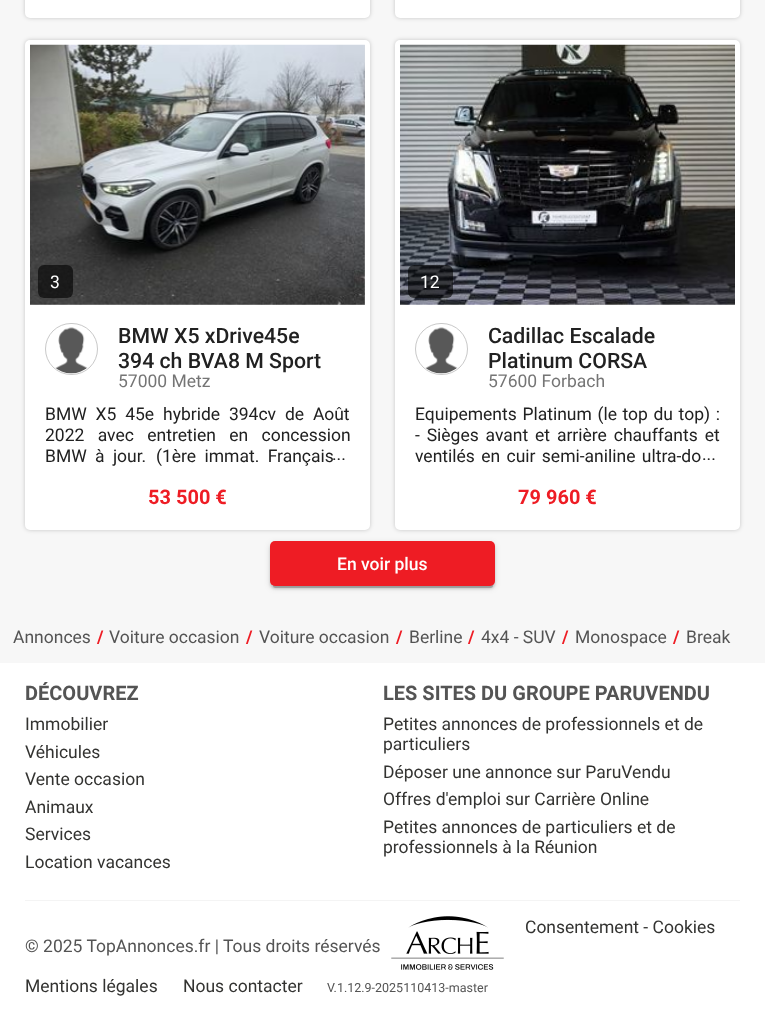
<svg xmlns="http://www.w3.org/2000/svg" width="765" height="1020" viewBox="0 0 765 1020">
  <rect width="100%" height="100%" fill="#f7f7f7"/>
  <rect x="25" y="-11" width="345" height="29" rx="5" fill="#00000033" filter="blur(2px)"/>
  <rect x="25" y="-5" width="345" height="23" rx="5" fill="#fff"/>
  <rect x="395" y="-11" width="345" height="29" rx="5" fill="#00000033" filter="blur(2px)"/>
  <rect x="395" y="-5" width="345" height="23" rx="5" fill="#fff"/>
  <rect x="25" y="40" width="345" height="490" rx="5" fill="#00000033" filter="blur(2px)"/>
  <rect x="25" y="40" width="345" height="490" rx="5" fill="#fff"/>
  <path d="M30 45h335v260H30z" fill="#e1e1e1"/>
  <image x="30" y="44" width="335" height="261" href="img/1.png"/>
  <rect x="38" y="265" width="35" height="33" rx="6" fill="#00000099"/>
  <rect x="45.5" y="323.5" width="52" height="51" rx="25.5" fill="none" stroke="#c9c9c9"/>
  <image x="55" y="327" width="33" height="47" href="img/2.png"/>
  <rect x="395" y="40" width="345" height="490" rx="5" fill="#00000033" filter="blur(2px)"/>
  <rect x="395" y="40" width="345" height="490" rx="5" fill="#fff"/>
  <image x="400" y="44" width="335" height="261" href="img/3.png"/>
  <rect x="408" y="265" width="45" height="33" rx="6" fill="#00000099"/>
  <rect x="415.5" y="323.5" width="52" height="51" rx="25.5" fill="none" stroke="#c9c9c9"/>
  <image x="425" y="327" width="33" height="47" href="img/2.png"/>
  <rect x="270" y="543" width="225" height="45" rx="5" fill="#0000001f" filter="blur(3px)"/>
  <rect x="270" y="544" width="225" height="45" rx="5" fill="#00000024" filter="blur(1px)"/>
  <rect x="273" y="548" width="220" height="40" rx="2.5" fill="#00000033" filter="blur(0.5px)"/>
  <rect x="270" y="541" width="225" height="45" rx="5" fill="#ee1c24"/>
  <path d="M0 663h765v357H0z" fill="#fff"/>
  <path d="M25 900h715v1H25z" fill="#f4f4f4"/>
  <image x="391" y="916" width="113" height="54" href="img/4.png"/>
  <text x="50" y="288" font-family="Roboto" font-size="17.5" fill="#fff">3</text>
  <g font-family="Roboto" font-size="21.25" font-weight="500" fill="#212121">
    <text x="118" y="343">BMW X5 xDrive45e</text>
    <text x="118" y="368">394 ch BVA8 M Sport</text>
  </g>
  <text x="118" y="387" font-family="Roboto" font-size="17.5" fill="#757575">57000 Metz</text>
  <g font-family="Roboto" font-size="17.5" fill="#212121">
    <text x="45" y="420" word-spacing="4.5">BMW X5 45e hybride 394cv de Août</text>
    <text x="45" y="441" word-spacing="9">2022 avec entretien en concession</text>
    <text x="45" y="462" word-spacing="4">BMW à jour.</text>
    <text x="156" y="462" word-spacing="4">(1ère immat. Français</text>
  </g>
  <path d="M333 453h1v8H333z" fill="#fff"/>
  <text x="332" y="460" font-family="Roboto" font-size="17.5" fill="#212121">...</text>
  <text x="148" y="504" font-family="Roboto" font-size="20" font-weight="bold" fill="#ee1c24">53 500 €</text>
  <text x="420" y="288" font-family="Roboto" font-size="17.5" fill="#fff">12</text>
  <g font-family="Roboto" font-size="21.25" font-weight="500" fill="#212121">
    <text x="488" y="343">Cadillac Escalade</text>
    <text x="488" y="368">Platinum CORSA</text>
  </g>
  <text x="488" y="387" font-family="Roboto" font-size="17.5" fill="#757575">57600 Forbach</text>
  <g font-family="Roboto" font-size="17.5" fill="#212121">
    <text x="415" y="420" word-spacing="1.25">Equipements Platinum (le top du top) :</text>
    <text x="415" y="441" word-spacing="2.5">- Sièges avant et arrière chauffants et</text>
    <text x="415" y="462" word-spacing="2">ventilés en cuir semi-aniline ultra-do</text>
    <text x="702" y="460">...</text>
  </g>
  <text x="518" y="504" font-family="Roboto" font-size="20" font-weight="bold" fill="#ee1c24">79 960 €</text>
  <text x="337" y="570" font-family="Roboto" font-size="17.5" font-weight="500" fill="#fff">En voir plus</text>
  <text x="13" y="643" font-family="Roboto" font-size="17.5" fill="#545454">Annonces</text>
  <text x="97" y="643" font-family="Roboto" font-size="17.5" font-weight="bold" fill="#ee1c24">/</text>
  <text x="109" y="643" font-family="Roboto" font-size="17.5" fill="#545454">Voiture occasion</text>
  <text x="246" y="643" font-family="Roboto" font-size="17.5" font-weight="bold" fill="#ee1c24">/</text>
  <text x="259" y="643" font-family="Roboto" font-size="17.5" fill="#545454">Voiture occasion</text>
  <text x="396" y="643" font-family="Roboto" font-size="17.5" font-weight="bold" fill="#ee1c24">/</text>
  <text x="409" y="643" font-family="Roboto" font-size="17.5" fill="#545454">Berline</text>
  <text x="468" y="643" font-family="Roboto" font-size="17.5" font-weight="bold" fill="#ee1c24">/</text>
  <text x="481" y="643" font-family="Roboto" font-size="17.5" fill="#545454">4x4 - SUV</text>
  <text x="562" y="643" font-family="Roboto" font-size="17.5" font-weight="bold" fill="#ee1c24">/</text>
  <text x="575" y="643" font-family="Roboto" font-size="17.5" fill="#545454">Monospace</text>
  <text x="673" y="643" font-family="Roboto" font-size="17.5" font-weight="bold" fill="#ee1c24">/</text>
  <text x="686" y="643" font-family="Roboto" font-size="17.5" fill="#545454">Break</text>
  <text x="25" y="700" font-family="Roboto" font-size="20" font-weight="bold" fill="#545454">DÉCOUVREZ</text>
  <g font-family="Roboto" font-size="17.5" fill="#333331">
    <text x="25" y="730">Immobilier</text>
    <text x="25" y="758">Véhicules</text>
    <text x="25" y="785">Vente occasion</text>
    <text x="25" y="813">Animaux</text>
    <text x="25" y="840">Services</text>
    <text x="25" y="868">Location vacances</text>
  </g>
  <text x="383" y="700" font-family="Roboto" font-size="20" font-weight="bold" fill="#545454">LES SITES DU GROUPE PARUVENDU</text>
  <g font-family="Roboto" font-size="17.5" fill="#333331">
    <text x="383" y="730">Petites annonces de professionnels et de</text>
    <text x="383" y="750">particuliers</text>
    <text x="383" y="778">Déposer une annonce sur ParuVendu</text>
    <text x="383" y="805">Offres d'emploi sur Carrière Online</text>
    <text x="383" y="833">Petites annonces de particuliers et de</text>
    <text x="383" y="853">professionnels à la Réunion</text>
    <text x="525" y="933">Consentement - Cookies</text>
  </g>
  <text x="25" y="952" font-family="Roboto" font-size="17.5" fill="#545454">© 2025 TopAnnonces.fr | Tous droits réservés</text>
  <g font-family="Roboto" font-size="17.5" fill="#333331">
    <text x="25" y="992">Mentions légales</text>
    <text x="183" y="992">Nous contacter</text>
  </g>
  <text x="327" y="992" font-family="Roboto" font-size="12.5" fill="#545454">V.1.12.9-2025110413-master</text>
</svg>
